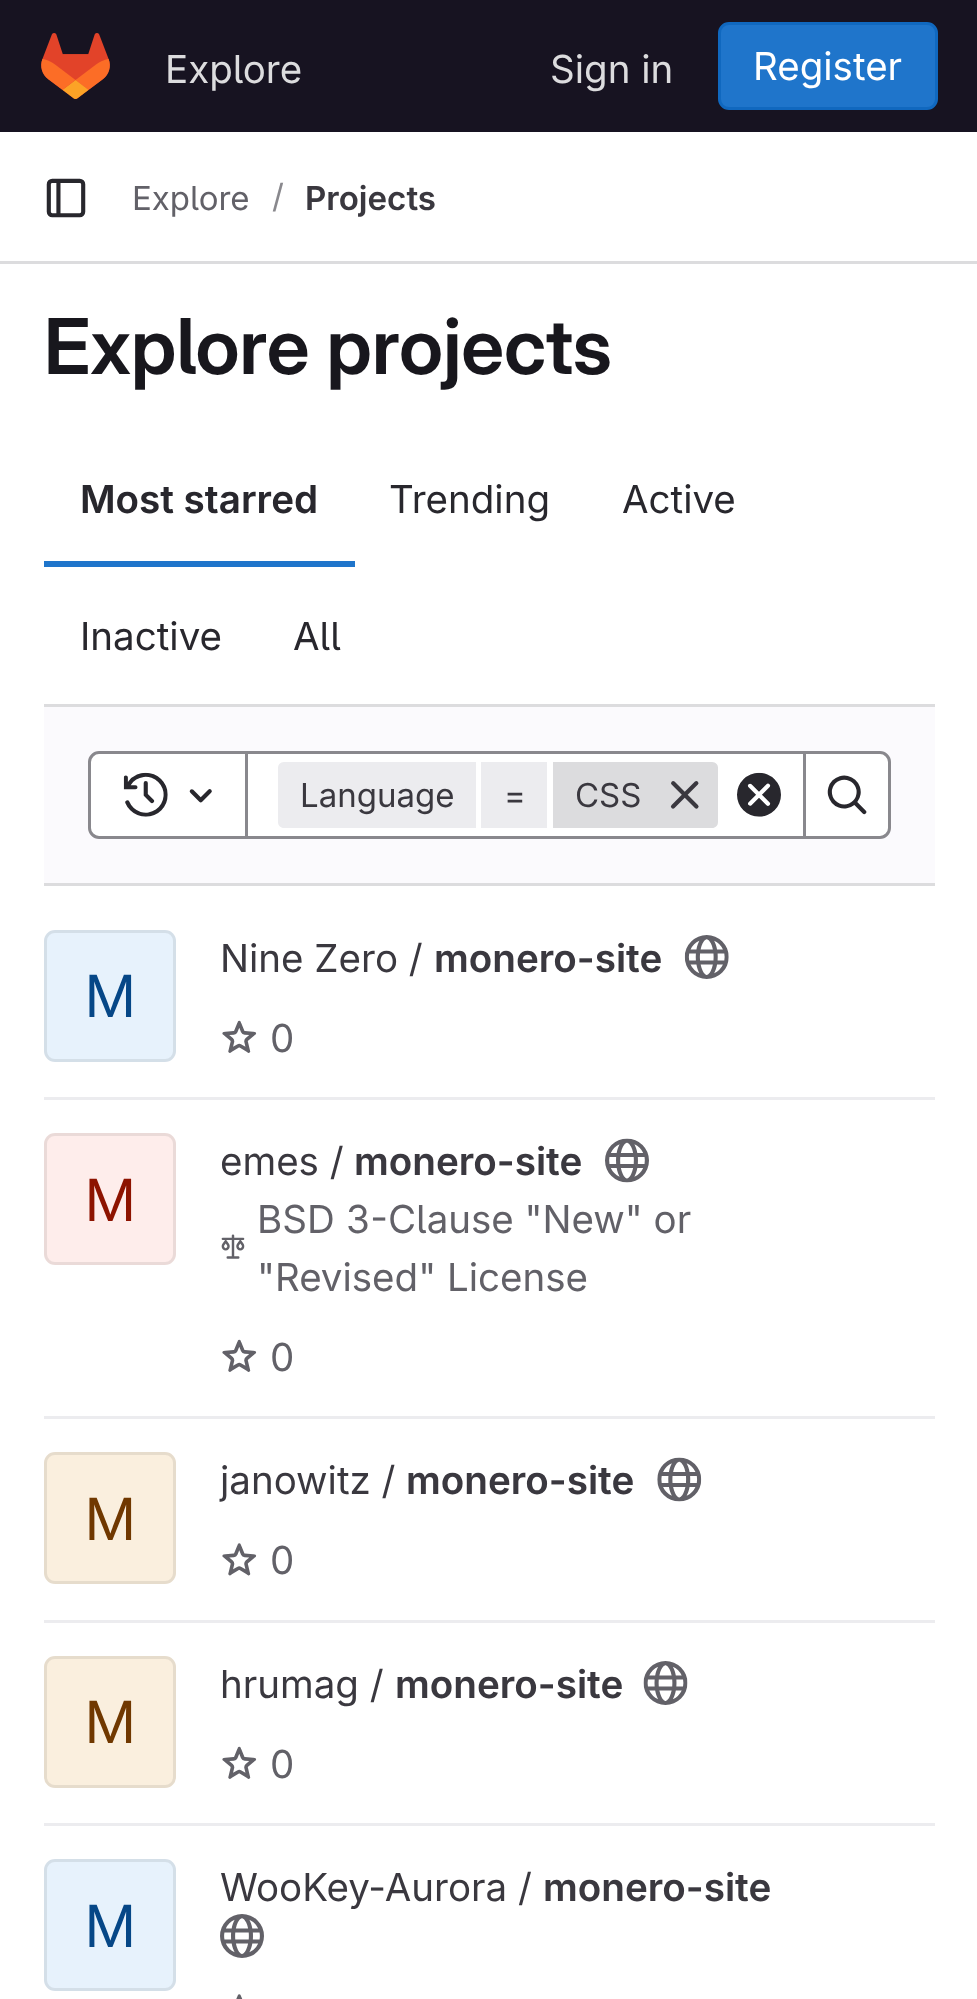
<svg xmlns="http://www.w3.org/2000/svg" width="977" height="1999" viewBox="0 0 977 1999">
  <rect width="100%" height="100%" fill="#fff"/>
  <path d="M0 0h977v132H0z" fill="#171321"/>
  <image x="41" y="33" width="69" height="66" href="img/1.png"/>
  <rect x="719.5" y="23.5" width="217" height="85" rx="9.5" fill="#1f75cb" stroke="#1068bf" stroke-width="3"/>
  <path d="M0 261h977v3H0z" fill="#dcdcde"/>
  <image x="46" y="178" width="40" height="40" href="img/2.png"/>
  <path d="M44 561h311v6H44z" fill="#1f75cb"/>
  <path d="M44 707h891v176H44z" fill="#fbfafd"/>
  <path d="M44 704h891v3H44z" fill="#dcdcde"/>
  <path d="M44 883h891v3H44z" fill="#dcdcde"/>
  <path d="M246.5 752.5h558v85H246.5z" fill="#fff" stroke="#89888d" stroke-width="3"/>
  <path d="M99 752.5H246.5V837.5H99C94 837.5 89.5 833 89.5 828V762C89.5 757 94 752.5 99 752.5Z" fill="#fff" stroke="#89888d" stroke-width="3"/>
  <image x="123" y="772" width="45" height="45" href="img/3.png"/>
  <image x="189" y="789" width="23" height="14" href="img/4.png"/>
  <path d="M284 762H476V828H284C280.5 828 278 825.5 278 822V768C278 764.5 280.5 762 284 762Z" fill="#ececef"/>
  <path d="M481 762h66v66H481z" fill="#ececef"/>
  <path d="M553 762H712C715.5 762 718 764.5 718 768V822C718 825.5 715.5 828 712 828H553Z" fill="#dcdcde"/>
  <image x="670" y="781" width="29" height="28" href="img/5.png"/>
  <image x="737" y="772" width="44" height="45" href="img/6.png"/>
  <path d="M804.5 752.5H880C885 752.5 889.5 757 889.5 762V828C889.5 833 885 837.5 880 837.5H804.5Z" fill="#fff" stroke="#89888d" stroke-width="3"/>
  <image x="827" y="775" width="40" height="40" href="img/7.png"/>
  <path d="M44 1097h891v3H44z" fill="#ececef"/>
  <rect x="44" y="930" width="132" height="132" rx="11" fill="#e7f2fc"/>
  <rect x="45.5" y="931.5" width="129" height="129" rx="9.5" fill="none" stroke="#05050614" stroke-width="3"/>
  <image x="684" y="935" width="45" height="44" href="img/8.png"/>
  <image x="222" y="1020" width="35" height="33" href="img/9.png"/>
  <path d="M44 1416h891v3H44z" fill="#ececef"/>
  <rect x="44" y="1133" width="132" height="132" rx="11" fill="#feedeb"/>
  <rect x="45.5" y="1134.5" width="129" height="129" rx="9.5" fill="none" stroke="#05050614" stroke-width="3"/>
  <image x="605" y="1138" width="44" height="45" href="img/10.png"/>
  <image x="221" y="1234" width="24" height="25" href="img/11.png"/>
  <image x="222" y="1339" width="35" height="33" href="img/9.png"/>
  <path d="M44 1620h891v3H44z" fill="#ececef"/>
  <rect x="44" y="1452" width="132" height="132" rx="11" fill="#faefde"/>
  <rect x="45.5" y="1453.5" width="129" height="129" rx="9.5" fill="none" stroke="#05050614" stroke-width="3"/>
  <image x="657" y="1457" width="45" height="45" href="img/12.png"/>
  <image x="222" y="1543" width="35" height="33" href="img/13.png"/>
  <path d="M44 1823h891v3H44z" fill="#ececef"/>
  <rect x="44" y="1656" width="132" height="132" rx="11" fill="#faefde"/>
  <rect x="45.5" y="1657.5" width="129" height="129" rx="9.5" fill="none" stroke="#05050614" stroke-width="3"/>
  <image x="643" y="1661" width="45" height="44" href="img/14.png"/>
  <image x="222" y="1746" width="35" height="33" href="img/9.png"/>
  <image x="220" y="1914" width="44" height="44" href="img/15.png"/>
  <image x="236" y="1994" width="7" height="5" href="img/16.png"/>
  <rect x="44" y="1859" width="132" height="132" rx="11" fill="#e7f2fc"/>
  <rect x="45.5" y="1860.5" width="129" height="129" rx="9.5" fill="none" stroke="#05050614" stroke-width="3"/>
  <g font-family="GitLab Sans" font-size="38.5" fill="#dcdcde">
    <text x="165" y="83">Explore</text>
    <text x="550" y="83">Sign in</text>
  </g>
  <text x="753" y="80" font-family="GitLab Sans" font-size="38.5" fill="#fff">Register</text>
  <text x="132" y="210" font-family="GitLab Sans" font-size="33" fill="#626168">Explore</text>
  <text x="272" y="208" font-family="GitLab Sans" font-size="33" fill="#89888d">/</text>
  <text x="305" y="210" font-family="'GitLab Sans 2'" font-size="33" font-weight="600" fill="#3a383f">Projects</text>
  <text x="44" y="374" font-family="GitLab Sans" font-size="77" font-weight="600" fill="#18171d">Explore projects</text>
  <text x="80" y="513" font-family="'GitLab Sans 2'" font-size="38.5" font-weight="600" fill="#28272d">Most starred</text>
  <g font-family="GitLab Sans" font-size="38.5" fill="#28272d">
    <text x="389" y="513">Trending</text>
    <text x="622" y="513">Active</text>
    <text x="80" y="650">Inactive</text>
    <text x="293" y="650">All</text>
  </g>
  <g font-family="GitLab Sans" font-size="33" fill="#3a383f">
    <text x="300" y="807">Language</text>
    <text x="504" y="807">=</text>
    <text x="575" y="807">CSS</text>
  </g>
  <text x="85" y="1017" font-family="'GitLab Sans 2'" font-size="58" fill="#064787">M</text>
  <text x="220" y="972" font-family="GitLab Sans" font-size="38.5" fill="#3a383f">Nine Zero /</text>
  <text x="434" y="972" font-family="'GitLab Sans 2'" font-size="38.5" font-weight="600" fill="#3a383f">monero-site</text>
  <text x="270" y="1052" font-family="GitLab Sans" font-size="38.5" fill="#626168">0</text>
  <text x="85" y="1221" font-family="'GitLab Sans 2'" font-size="58" fill="#8d1300">M</text>
  <text x="220" y="1175" font-family="GitLab Sans" font-size="38.5" fill="#3a383f">emes /</text>
  <text x="354" y="1175" font-family="'GitLab Sans 2'" font-size="38.5" font-weight="600" fill="#3a383f">monero-site</text>
  <g font-family="GitLab Sans" font-size="38.5" fill="#626168">
    <text x="257" y="1233">BSD 3-Clause "New" or</text>
    <text x="257" y="1291">"Revised" License</text>
    <text x="270" y="1371">0</text>
  </g>
  <text x="85" y="1540" font-family="'GitLab Sans 2'" font-size="58" fill="#703800">M</text>
  <text x="220" y="1494" font-family="GitLab Sans" font-size="38.5" fill="#3a383f">janowitz /</text>
  <text x="406" y="1494" font-family="'GitLab Sans 2'" font-size="38.5" font-weight="600" fill="#3a383f">monero-site</text>
  <text x="270" y="1574" font-family="GitLab Sans" font-size="38.5" fill="#626168">0</text>
  <text x="85" y="1743" font-family="'GitLab Sans 2'" font-size="58" fill="#703800">M</text>
  <text x="220" y="1698" font-family="GitLab Sans" font-size="38.5" fill="#3a383f">hrumag /</text>
  <text x="395" y="1698" font-family="'GitLab Sans 2'" font-size="38.5" font-weight="600" fill="#3a383f">monero-site</text>
  <text x="270" y="1778" font-family="GitLab Sans" font-size="38.5" fill="#626168">0</text>
  <text x="220" y="1901" font-family="GitLab Sans" font-size="38.5" fill="#3a383f">WooKey-Aurora /</text>
  <text x="543" y="1901" font-family="'GitLab Sans 2'" font-size="38.5" font-weight="600" fill="#3a383f">monero-site</text>
  <text x="85" y="1947" font-family="'GitLab Sans 2'" font-size="58" fill="#064787">M</text>
</svg>
